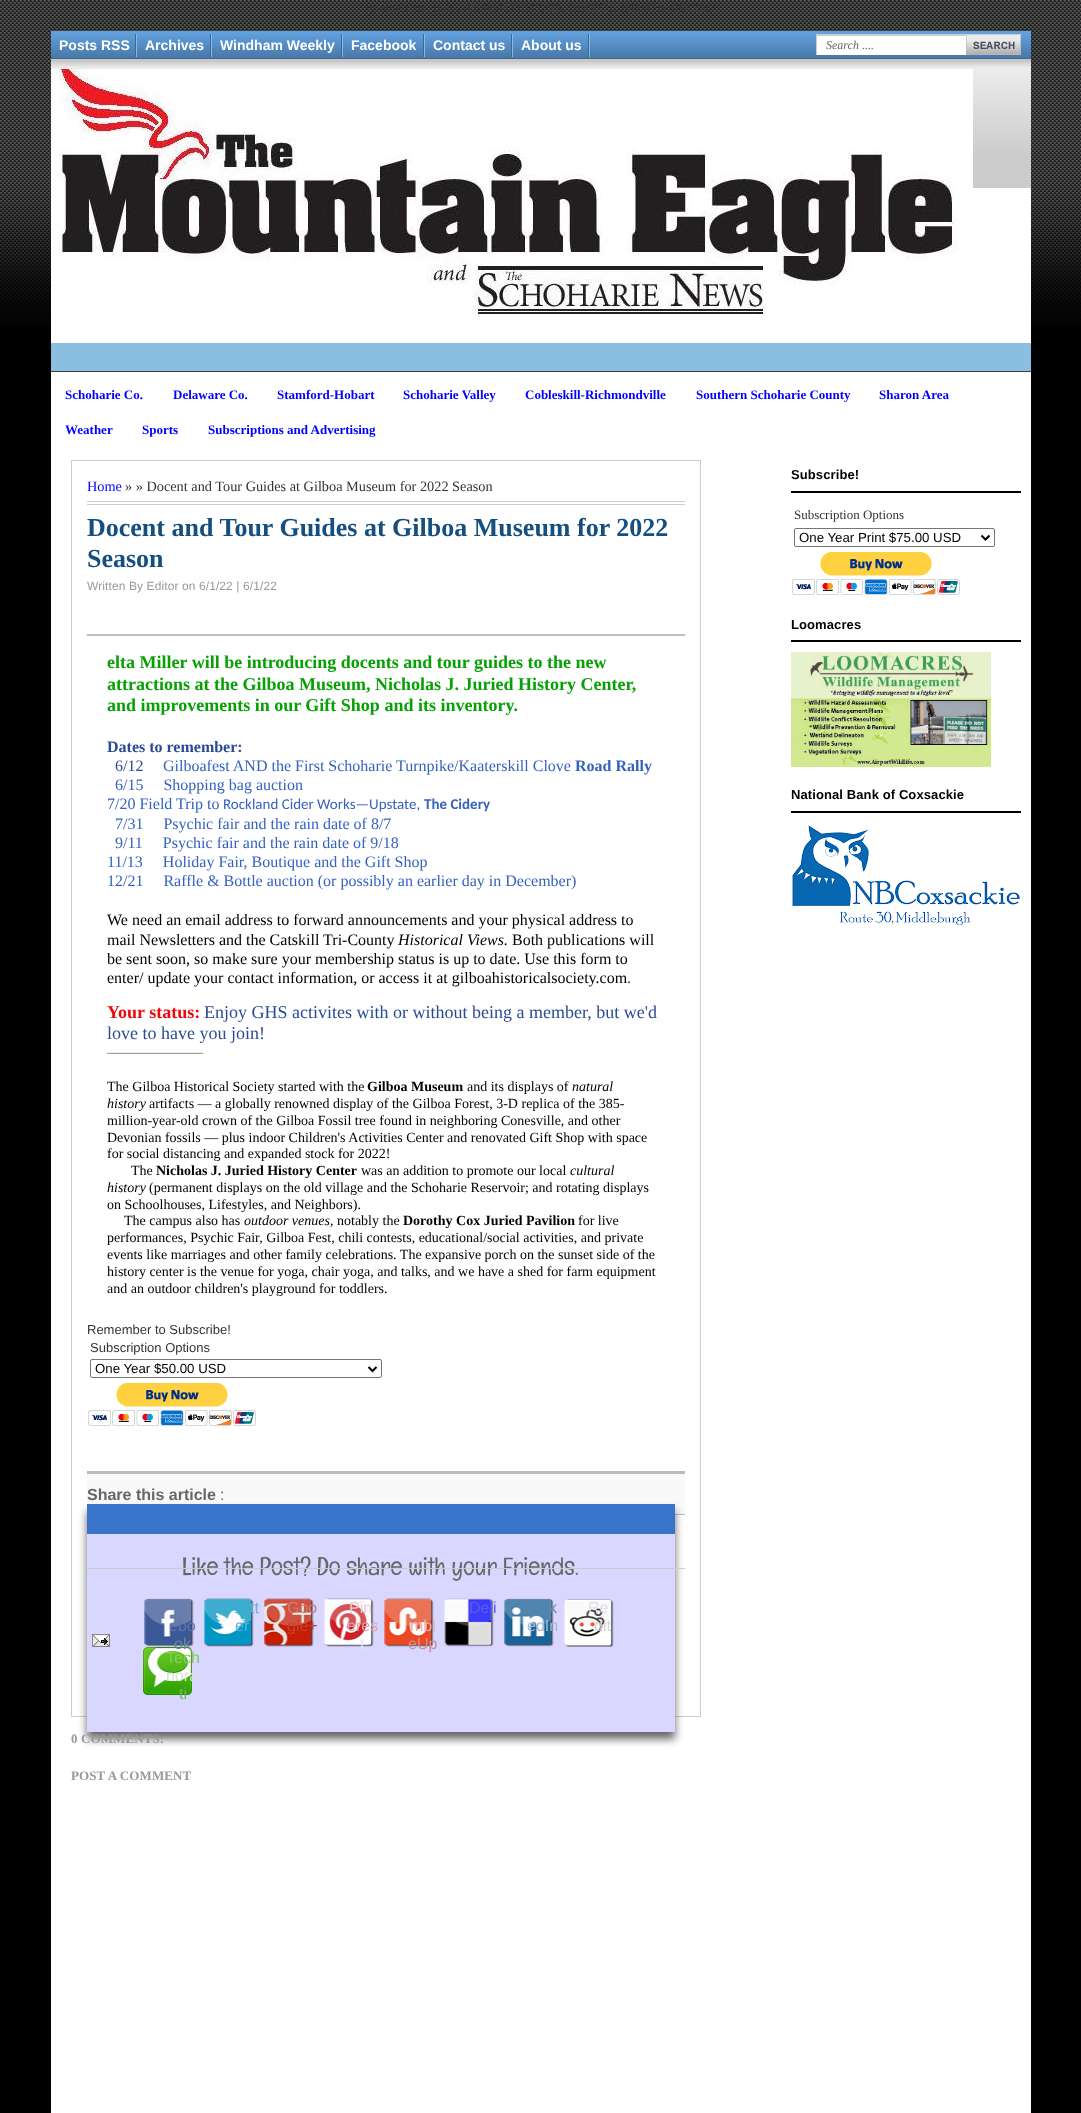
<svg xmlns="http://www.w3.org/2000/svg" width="1081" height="2113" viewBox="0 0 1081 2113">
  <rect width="100%" height="100%" fill="#000"/>
  <image x="0" y="0" width="1081" height="325" href="img/1.png"/>
  <path d="M51 188h980v1925H51z" fill="#fff"/>
  <image x="51" y="31" width="980" height="28" href="img/2.png"/>
  <image x="135" y="34" width="2" height="23" href="img/3.png"/>
  <image x="210" y="34" width="2" height="23" href="img/3.png"/>
  <image x="341" y="34" width="2" height="23" href="img/3.png"/>
  <image x="423" y="34" width="2" height="23" href="img/3.png"/>
  <image x="511" y="34" width="2" height="23" href="img/3.png"/>
  <image x="588" y="34" width="2" height="23" href="img/3.png"/>
  <image x="816" y="34" width="150" height="21" href="img/4.png"/>
  <image x="966" y="34" width="55" height="21" href="img/5.png"/>
  <image x="51" y="59" width="980" height="129" href="img/6.png"/>
  <image x="51" y="69" width="922" height="248" href="img/7.png"/>
  <path d="M51 343h980v28H51z" fill="#8abfe1"/>
  <path d="M51 371h980v1H51z" fill="#3b3b3b"/>
  <path d="M71.5 460.5h629v1256H71.5z" fill="none" stroke="#ccc"/>
  <path d="M87 501h598v1H87z" fill="#ccc"/>
  <path d="M87 504h598v1H87z" fill="#ccc"/>
  <path d="M87 634h598v2H87z" fill="#bbb"/>
  <rect x="90.5" y="1359.5" width="291" height="18" rx="1.5" fill="none" stroke="#767676"/>
  <path d="M368.5 1367L372.5 1371L376.5 1367" fill="none" stroke="#000" stroke-width="2"/>
  <image x="88" y="1383" width="168" height="43" href="img/8.png"/>
  <path d="M87 1474h598v40H87z" fill="#f9f9f9"/>
  <path d="M87 1471h598v3H87z" fill="#bbb"/>
  <path d="M675 1514h10v1H675z" fill="#bbb"/>
  <path d="M87 1511h588v228H87z" fill="#323232bf" filter="blur(4.5px)"/>
  <path d="M87 1534h588v198H87z" fill="#d9d6ff"/>
  <path d="M87 1504h588v30H87z" fill="#3873cc"/>
  <image x="144" y="1598" width="50" height="49" href="img/9.png"/>
  <image x="204" y="1598" width="50" height="49" href="img/10.png"/>
  <image x="264" y="1598" width="50" height="49" href="img/11.png"/>
  <image x="324" y="1598" width="50" height="49" href="img/12.png"/>
  <image x="384" y="1598" width="50" height="49" href="img/13.png"/>
  <image x="444" y="1598" width="50" height="49" href="img/14.png"/>
  <image x="504" y="1598" width="50" height="49" href="img/15.png"/>
  <image x="564" y="1599" width="50" height="48" href="img/16.png"/>
  <image x="143" y="1647" width="49" height="48" href="img/17.png"/>
  <image x="92" y="1634" width="18" height="13" href="img/18.png"/>
  <path d="M791 491h230v2H791z" fill="#000"/>
  <rect x="794.5" y="528.5" width="200" height="18" rx="1.5" fill="none" stroke="#767676"/>
  <path d="M981.5 535.5L985.5 539.5L989.5 535.5" fill="none" stroke="#000" stroke-width="2"/>
  <image x="792" y="552" width="168" height="43" href="img/8.png"/>
  <path d="M791 640h230v2H791z" fill="#000"/>
  <image x="791" y="652" width="200" height="115" href="img/19.png"/>
  <path d="M791 811h230v2H791z" fill="#000"/>
  <image x="792" y="825" width="228" height="101" href="img/20.png"/>
  <text x="366" y="12" font-family="Liberation Serif" font-size="13" fill="#333">google.com, pub-2480664471547226, DIRECT, f08c47fec0942fa0</text>
  <g font-family="Liberation Sans" font-size="14" font-weight="bold" fill="#fff">
    <text x="59" y="50">Posts RSS</text>
    <text x="145" y="50">Archives</text>
    <text x="220" y="50">Windham Weekly</text>
    <text x="351" y="50">Facebook</text>
    <text x="433" y="50">Contact us</text>
    <text x="521" y="50">About us</text>
  </g>
  <text x="826" y="49" font-family="Liberation Serif" font-size="12" font-style="italic" fill="#666">Search ....</text>
  <g font-family="Liberation Serif" font-size="13" font-weight="bold" fill="#00f">
    <text x="65" y="399">Schoharie Co.</text>
    <text x="173" y="399">Delaware Co.</text>
    <text x="277" y="399">Stamford-Hobart</text>
    <text x="403" y="399">Schoharie Valley</text>
    <text x="525" y="399">Cobleskill-Richmondville</text>
    <text x="696" y="399">Southern Schoharie County</text>
    <text x="879" y="399">Sharon Area</text>
    <text x="65" y="434">Weather</text>
    <text x="142" y="434">Sports</text>
    <text x="208" y="434">Subscriptions and Advertising</text>
  </g>
  <text x="87" y="491" font-family="Liberation Serif" font-size="14.3" fill="#00f">Home</text>
  <text x="125" y="491" font-family="Liberation Serif" font-size="14.3" fill="#333">» » Docent and Tour Guides at Gilboa Museum for 2022 Season</text>
  <g font-family="Liberation Serif" font-size="26" font-weight="bold" fill="#154f80">
    <text x="87" y="536">Docent and Tour Guides at Gilboa Museum for 2022</text>
    <text x="87" y="567">Season</text>
  </g>
  <text x="87" y="590" font-family="Liberation Sans" font-size="12" letter-spacing="0.1" fill="#999">Written By Editor on 6/1/22 | 6/1/22</text>
  <g font-family="Liberation Serif" font-size="18" font-weight="bold" fill="#07a105">
    <text x="107" y="668">elta Miller will be introducing docents and tour guides to the new</text>
    <text x="107" y="690">attractions at the Gilboa Museum, Nicholas J. Juried History Center,</text>
    <text x="107" y="711">and improvements in our Gift Shop and its inventory.</text>
  </g>
  <text x="107" y="752" font-family="Liberation Serif" font-size="16" font-weight="bold" fill="#294b93">Dates to remember:</text>
  <text x="115" y="771" font-family="Liberation Serif" font-size="16" fill="#294b93">6/12</text>
  <text x="163" y="771" font-family="Liberation Serif" font-size="16" fill="#3562bf">Gilboafest AND the First Schoharie Turnpike/Kaaterskill Clove</text>
  <text x="575" y="771" font-family="Liberation Serif" font-size="16" font-weight="bold" fill="#3562bf">Road Rally</text>
  <g font-family="Liberation Serif" font-size="16" fill="#3562bf">
    <text x="115" y="790" xml:space="preserve">6/15     Shopping bag auction</text>
    <text x="107" y="809">7/20 Field Trip to</text>
  </g>
  <text x="223" y="809" font-family="Carlito" font-size="15" fill="#3562bf">Rockland Cider Works—Upstate,</text>
  <text x="424" y="809" font-family="Carlito" font-size="15" font-weight="bold" fill="#3562bf">The Cidery</text>
  <g font-family="Liberation Serif" font-size="16" fill="#3562bf">
    <text x="115" y="829" xml:space="preserve">7/31     Psychic fair and the rain date of 8/7</text>
    <text x="115" y="848" xml:space="preserve">9/11     Psychic fair and the rain date of 9/18</text>
    <text x="107" y="867" xml:space="preserve">11/13     Holiday Fair, Boutique and the Gift Shop</text>
    <text x="107" y="886" xml:space="preserve">12/21     Raffle &amp; Bottle auction (or possibly an earlier day in December)</text>
  </g>
  <g font-family="Liberation Serif" font-size="16" fill="#000">
    <text x="107" y="925">We need an email address to forward announcements and your physical address to</text>
    <text x="107" y="945">mail Newsletters and the Catskill Tri-County</text>
  </g>
  <text x="398" y="945" font-family="Liberation Serif" font-size="16" font-style="italic" fill="#000">Historical Views.</text>
  <g font-family="Liberation Serif" font-size="16" fill="#000">
    <text x="512" y="945">Both publications will</text>
    <text x="107" y="964">be sent soon, so make sure your membership status is up to date. Use this form to</text>
    <text x="107" y="983">enter/ update your contact information, or access it at gilboahistoricalsociety.com</text>
  </g>
  <text x="627" y="983" font-family="Liberation Serif" font-size="16" fill="#403f42">.</text>
  <text x="107" y="1018" font-family="Liberation Serif" font-size="18" font-weight="bold" fill="#ed0909">Your status:</text>
  <g font-family="Liberation Serif" font-size="18" fill="#294b93">
    <text x="204" y="1018">Enjoy GHS activites with or without being a member, but we'd</text>
    <text x="107" y="1039">love to have you join!</text>
  </g>
  <text x="107" y="1056" font-family="Liberation Serif" font-size="12" fill="#403f42">————————</text>
  <text x="107" y="1091" font-family="Liberation Serif" font-size="14" fill="#000">The Gilboa Historical Society started with the</text>
  <text x="367" y="1091" font-family="Liberation Serif" font-size="14" font-weight="bold" fill="#000">Gilboa Museum</text>
  <text x="467" y="1091" font-family="Liberation Serif" font-size="14" fill="#000">and its displays of</text>
  <g font-family="Liberation Serif" font-size="14" font-style="italic" fill="#000">
    <text x="572" y="1091">natural</text>
    <text x="107" y="1108">history</text>
  </g>
  <g font-family="Liberation Serif" font-size="14" fill="#000">
    <text x="149" y="1108">artifacts — a globally renowned display of the Gilboa Forest, 3-D replica of the 385-</text>
    <text x="107" y="1125">million-year-old crown of the Gilboa Fossil tree found in neighboring Conesville, and other</text>
    <text x="107" y="1142">Devonian fossils — plus indoor Children's Activities Center and renovated Gift Shop with space</text>
    <text x="107" y="1158">for social distancing and expanded stock for 2022!</text>
    <text x="131" y="1175">The</text>
  </g>
  <text x="156" y="1175" font-family="Liberation Serif" font-size="14" font-weight="bold" fill="#000">Nicholas J. Juried History Center</text>
  <text x="361" y="1175" font-family="Liberation Serif" font-size="14" fill="#000">was an addition to promote our local</text>
  <g font-family="Liberation Serif" font-size="14" font-style="italic" fill="#000">
    <text x="570" y="1175">cultural</text>
    <text x="107" y="1192">history</text>
  </g>
  <g font-family="Liberation Serif" font-size="14" fill="#000">
    <text x="149" y="1192">(permanent displays on the old village and the Schoharie Reservoir; and rotating displays</text>
    <text x="107" y="1209">on Schoolhouses, Lifestyles, and Neighbors).</text>
    <text x="124" y="1225">The campus also has</text>
  </g>
  <text x="244" y="1225" font-family="Liberation Serif" font-size="14" font-style="italic" fill="#000">outdoor venues,</text>
  <text x="337" y="1225" font-family="Liberation Serif" font-size="14" fill="#000">notably the</text>
  <text x="403" y="1225" font-family="Liberation Serif" font-size="14" font-weight="bold" fill="#000">Dorothy Cox Juried Pavilion</text>
  <g font-family="Liberation Serif" font-size="14" fill="#000">
    <text x="578" y="1225">for live</text>
    <text x="107" y="1242">performances, Psychic Fair, Gilboa Fest, chili contests, educational/social activities, and private</text>
    <text x="107" y="1259">events like marriages and other family celebrations. The expansive porch on the sunset side of the</text>
    <text x="107" y="1276">history center is the venue for yoga, chair yoga, and talks, and we have a shed for farm equipment</text>
    <text x="107" y="1293">and an outdoor children's playground for toddlers.</text>
  </g>
  <g font-family="Liberation Sans" font-size="13" fill="#333">
    <text x="87" y="1334">Remember to Subscribe!</text>
    <text x="90" y="1352">Subscription Options</text>
  </g>
  <text x="95" y="1373" font-family="Liberation Sans" font-size="13.25" fill="#000">One Year $50.00 USD</text>
  <text x="87" y="1500" font-family="Liberation Sans" font-size="16" font-weight="bold" fill="#666">Share this article</text>
  <text x="220" y="1500" font-family="Liberation Sans" font-size="16" fill="#666">:</text>
  <text x="182" y="1575" font-family="Englebert" font-size="25" fill="#666">Like the Post? Do share with your Friends.</text>
  <text x="169" y="1631" font-family="Liberation Sans" font-size="16" fill="#6076aa">ebo</text>
  <text x="174" y="1649" font-family="Liberation Sans" font-size="16" fill="#6b849f">ok</text>
  <text x="250" y="1613" font-family="Liberation Sans" font-size="16" fill="#66b0d2">tt</text>
  <text x="235" y="1631" font-family="Liberation Sans" font-size="16" fill="#51b7d6">er</text>
  <text x="287" y="1613" font-family="Liberation Sans" font-size="16" fill="#ce7a75">Goo</text>
  <text x="287" y="1631" font-family="Liberation Sans" font-size="16" fill="#c54334">gle+</text>
  <text x="349" y="1613" font-family="Liberation Sans" font-size="16" fill="#eacdd6">Pin</text>
  <text x="347" y="1631" font-family="Liberation Sans" font-size="16" fill="#dda3ad">eres</text>
  <text x="360" y="1649" font-family="Liberation Sans" font-size="16" fill="#e6e4f4">t</text>
  <text x="410" y="1631" font-family="Liberation Sans" font-size="16" fill="#e6b3af">mbl</text>
  <text x="408" y="1649" font-family="Liberation Sans" font-size="16" fill="#d28d93">eUp</text>
  <text x="469" y="1613" font-family="Liberation Sans" font-size="16" fill="#5b5af2">Deli</text>
  <text x="549" y="1613" font-family="Liberation Sans" font-size="16" fill="#638db3">k</text>
  <text x="527" y="1631" font-family="Liberation Sans" font-size="16" fill="#a2bad2">edIn</text>
  <text x="588" y="1613" font-family="Liberation Sans" font-size="16" fill="#e0dee8">Re</text>
  <text x="594" y="1631" font-family="Liberation Sans" font-size="16" fill="#d6d5d5">dit</text>
  <text x="166" y="1663" font-family="Liberation Sans" font-size="16" fill="#87ca65">Tech</text>
  <text x="166" y="1681" font-family="Liberation Sans" font-size="16" fill="#d3e4d4">nora</text>
  <text x="179" y="1699" font-family="Liberation Sans" font-size="16" fill="#70b663">ti</text>
  <path d="M87 1568h598v1H87z" fill="#ccc"/>
  <g font-family="Liberation Serif" font-size="13" font-weight="bold" letter-spacing="0.1" fill="#999">
    <text x="71" y="1743">0 COMMENTS:</text>
    <text x="71" y="1780">POST A COMMENT</text>
  </g>
  <text x="791" y="479" font-family="Liberation Sans" font-size="13" font-weight="bold" letter-spacing="0.1" fill="#000">Subscribe!</text>
  <text x="794" y="519" font-family="Liberation Serif" font-size="13" fill="#333">Subscription Options</text>
  <text x="799" y="542" font-family="Liberation Sans" font-size="13.25" fill="#000">One Year Print $75.00 USD</text>
  <g font-family="Liberation Sans" font-size="13" font-weight="bold" letter-spacing="0.1" fill="#000">
    <text x="791" y="629">Loomacres</text>
    <text x="791" y="799">National Bank of Coxsackie</text>
  </g>
</svg>
